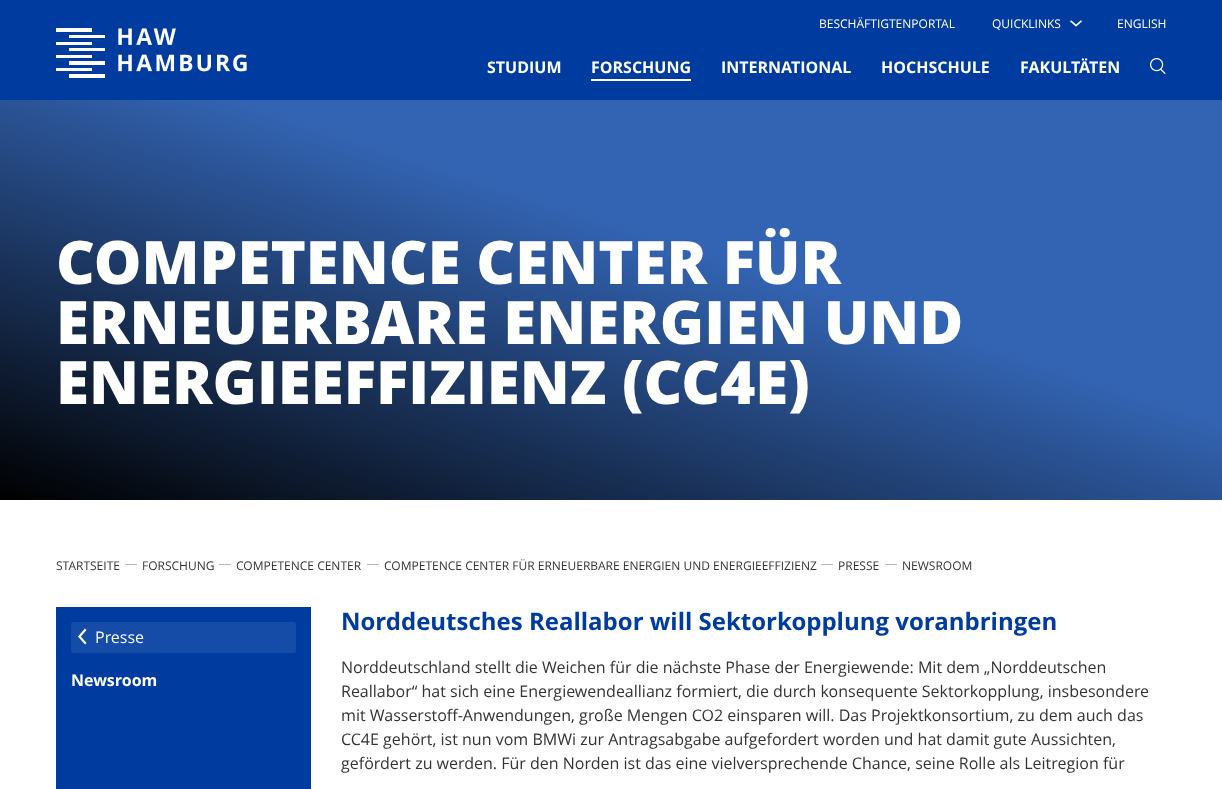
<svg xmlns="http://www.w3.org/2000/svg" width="1222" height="789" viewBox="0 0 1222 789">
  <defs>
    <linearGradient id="g1" gradientUnits="userSpaceOnUse" x1="493" y1="661" x2="729" y2="-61"><stop offset="0" stop-color="#000"/><stop offset="0.6" stop-color="#3364b3"/></linearGradient>
  </defs>
  <rect width="100%" height="100%" fill="#fff"/>
  <path d="M0 0h1222v100H0z" fill="#003ca0"/>
  <image x="56" y="28" width="191" height="50" href="img/1.png"/>
  <image x="1070" y="20" width="12" height="7" href="img/2.png"/>
  <path d="M591 79h100v2H591z" fill="#fff"/>
  <image x="1150" y="58" width="16" height="16" href="img/3.png"/>
  <path d="M0 100h1222v400H0z" fill="url(#g1)"/>
  <path d="M125 564.5H137V565H125Z" fill="#6c757d"/>
  <path d="M219 564.5H231V565H219Z" fill="#6c757d"/>
  <path d="M367 564.5H379V565H367Z" fill="#6c757d"/>
  <path d="M821 564.5H833V565H821Z" fill="#6c757d"/>
  <path d="M885 564.5H897V565H885Z" fill="#6c757d"/>
  <path d="M56 607h255v182H56z" fill="#003ca0"/>
  <rect x="71" y="622" width="225" height="31" rx="2.5" fill="#144ca8"/>
  <image x="78" y="628" width="9" height="17" href="img/4.png"/>
  <g font-family="Open Sans" font-size="12" fill="#fff">
    <text x="819" y="28">BESCHÄFTIGTENPORTAL</text>
    <text x="992" y="28">QUICKLINKS</text>
    <text x="1117" y="28">ENGLISH</text>
  </g>
  <g font-family="Open Sans" font-size="16" font-weight="bold" fill="#fff">
    <text x="487" y="73">STUDIUM</text>
    <text x="591" y="73">FORSCHUNG</text>
    <text x="721" y="73">INTERNATIONAL</text>
    <text x="881" y="73">HOCHSCHULE</text>
    <text x="1020" y="73">FAKULTÄTEN</text>
  </g>
  <g font-family="Open Sans" font-size="60" font-weight="800" fill="#fff">
    <text x="56" y="284">COMPETENCE CENTER FÜR</text>
    <text x="56" y="344">ERNEUERBARE ENERGIEN UND</text>
    <text x="56" y="404">ENERGIEEFFIZIENZ (CC4E)</text>
  </g>
  <g font-family="Open Sans" font-size="12" fill="#333">
    <text x="56" y="570">STARTSEITE</text>
    <text x="142" y="570">FORSCHUNG</text>
    <text x="236" y="570">COMPETENCE CENTER</text>
    <text x="384" y="570">COMPETENCE CENTER FÜR ERNEUERBARE ENERGIEN UND ENERGIEEFFIZIENZ</text>
    <text x="838" y="570">PRESSE</text>
    <text x="902" y="570">NEWSROOM</text>
  </g>
  <text x="95" y="643" font-family="Open Sans" font-size="16" fill="#fff">Presse</text>
  <text x="71" y="686" font-family="Open Sans" font-size="16" font-weight="bold" fill="#fff">Newsroom</text>
  <text x="341" y="630" font-family="Open Sans" font-size="24" font-weight="bold" fill="#003ca0">Norddeutsches Reallabor will Sektorkopplung voranbringen</text>
  <g font-family="Open Sans" font-size="16" fill="#333">
    <text x="341" y="673">Norddeutschland stellt die Weichen für die nächste Phase der Energiewende: Mit dem „Norddeutschen</text>
    <text x="341" y="697">Reallabor“ hat sich eine Energiewendeallianz formiert, die durch konsequente Sektorkopplung, insbesondere</text>
    <text x="341" y="721">mit Wasserstoff-Anwendungen, große Mengen CO2 einsparen will. Das Projektkonsortium, zu dem auch das</text>
    <text x="341" y="745">CC4E gehört, ist nun vom BMWi zur Antragsabgabe aufgefordert worden und hat damit gute Aussichten,</text>
    <text x="341" y="769">gefördert zu werden. Für den Norden ist das eine vielversprechende Chance, seine Rolle als Leitregion für</text>
  </g>
</svg>
